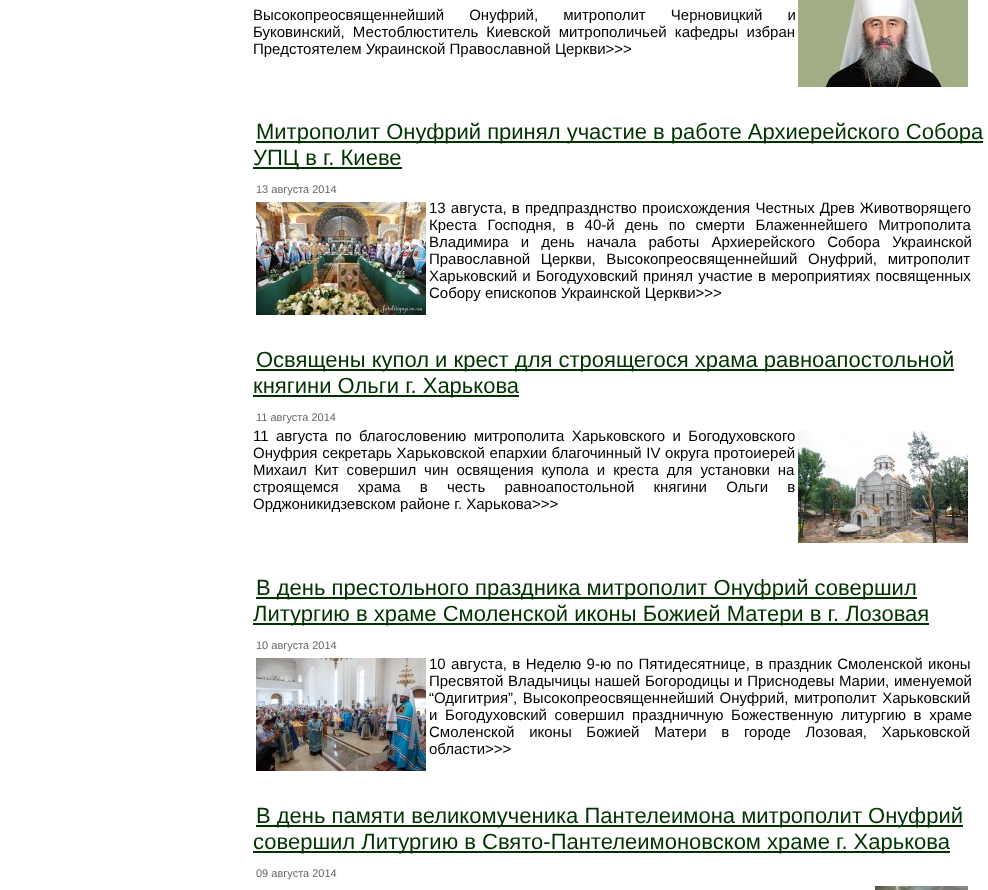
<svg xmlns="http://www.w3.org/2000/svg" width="988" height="890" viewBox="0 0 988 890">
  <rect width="100%" height="100%" fill="#fff"/>
  <image x="798" y="0" width="170" height="87" href="img/1.png"/>
  <path d="M256 141h727v2H256z" fill="#030"/>
  <path d="M253 167h149v2H253z" fill="#030"/>
  <image x="256" y="202" width="170" height="113" href="img/2.png"/>
  <path d="M256 369h698v2H256z" fill="#030"/>
  <path d="M253 395h266v2H253z" fill="#030"/>
  <image x="798" y="430" width="170" height="113" href="img/3.png"/>
  <path d="M256 597h661v2H256z" fill="#030"/>
  <path d="M253 623h676v2H253z" fill="#030"/>
  <image x="256" y="658" width="170" height="113" href="img/4.png"/>
  <path d="M256 825h707v2H256z" fill="#030"/>
  <path d="M253 851h697v2H253z" fill="#030"/>
  <image x="875" y="886" width="93" height="4" href="img/5.png"/>
  <g font-family="Liberation Sans" font-size="15" fill="#000">
    <text x="253" y="20" word-spacing="21">Высокопреосвященнейший Онуфрий, митрополит Черновицкий и</text>
    <text x="253" y="37" word-spacing="4">Буковинский, Местоблюститель Киевской митрополичьей кафедры избран</text>
    <text x="253" y="54">Предстоятелем Украинской Православной Церкви&gt;&gt;&gt;</text>
  </g>
  <g font-family="Liberation Sans" font-size="22" fill="#030">
    <text x="256" y="139">Митрополит Онуфрий принял участие в работе Архиерейского Собора</text>
    <text x="253" y="165">УПЦ в г. Киеве</text>
  </g>
  <text x="256" y="193" font-family="Liberation Sans" font-size="11" fill="#666">13 августа 2014</text>
  <g font-family="Liberation Sans" font-size="15" fill="#000">
    <text x="429" y="213" word-spacing="1">13 августа, в предпразднство происхождения Честных Древ Животворящего</text>
    <text x="429" y="230" word-spacing="6.25">Креста Господня, в 40-й день по смерти Блаженнейшего Митрополита</text>
    <text x="429" y="247" word-spacing="8">Владимира и день начала работы Архиерейского Собора Украинской</text>
    <text x="429" y="264" word-spacing="6.5">Православной Церкви, Высокопреосвященнейший Онуфрий, митрополит</text>
    <text x="429" y="281" word-spacing="1">Харьковский и Богодуховский принял участие в мероприятиях посвященных</text>
    <text x="429" y="298">Собору епископов Украинской Церкви&gt;&gt;&gt;</text>
  </g>
  <g font-family="Liberation Sans" font-size="22" fill="#030">
    <text x="256" y="367">Освящены купол и крест для строящегося храма равноапостольной</text>
    <text x="253" y="393">княгини Ольги г. Харькова</text>
  </g>
  <text x="256" y="421" font-family="Liberation Sans" font-size="11" fill="#666">11 августа 2014</text>
  <g font-family="Liberation Sans" font-size="15" fill="#000">
    <text x="253" y="441" word-spacing="3.25">11 августа по благословению митрополита Харьковского и Богодуховского</text>
    <text x="253" y="458" word-spacing="0.5">Онуфрия секретарь Харьковской епархии благочинный IV округа протоиерей</text>
    <text x="253" y="475" word-spacing="3.75">Михаил Кит совершил чин освящения купола и креста для установки на</text>
    <text x="253" y="492" word-spacing="15">строящемся храма в честь равноапостольной княгини Ольги в</text>
    <text x="253" y="509">Орджоникидзевском районе г. Харькова&gt;&gt;&gt;</text>
  </g>
  <g font-family="Liberation Sans" font-size="22" fill="#030">
    <text x="256" y="595">В день престольного праздника митрополит Онуфрий совершил</text>
    <text x="253" y="621">Литургию в храме Смоленской иконы Божией Матери в г. Лозовая</text>
  </g>
  <text x="256" y="649" font-family="Liberation Sans" font-size="11" fill="#666">10 августа 2014</text>
  <g font-family="Liberation Sans" font-size="15" fill="#000">
    <text x="429" y="669" word-spacing="1.25">10 августа, в Неделю 9-ю по Пятидесятнице, в праздник Смоленской иконы</text>
    <text x="429" y="686" word-spacing="0.5">Пресвятой Владычицы нашей Богородицы и Приснодевы Марии, именуемой</text>
    <text x="429" y="703" word-spacing="1.5">“Одигитрия”, Высокопреосвященнейший Онуфрий, митрополит Харьковский</text>
    <text x="429" y="720" word-spacing="3.5">и Богодуховский совершил праздничную Божественную литургию в храме</text>
    <text x="429" y="737" word-spacing="10.5">Смоленской иконы Божией Матери в городе Лозовая, Харьковской</text>
    <text x="429" y="754">области&gt;&gt;&gt;</text>
  </g>
  <g font-family="Liberation Sans" font-size="22" fill="#030">
    <text x="256" y="823">В день памяти великомученика Пантелеимона митрополит Онуфрий</text>
    <text x="253" y="849">совершил Литургию в Свято-Пантелеимоновском храме г. Харькова</text>
  </g>
  <text x="256" y="877" font-family="Liberation Sans" font-size="11" fill="#666">09 августа 2014</text>
</svg>
